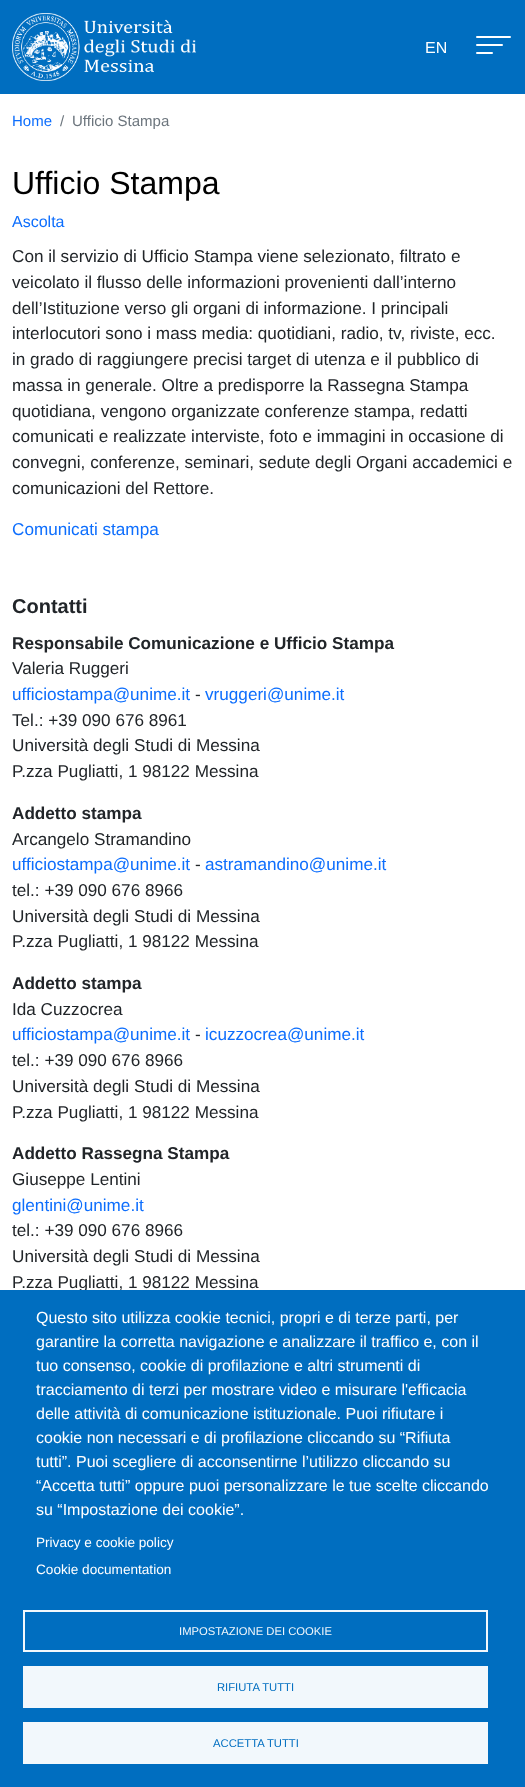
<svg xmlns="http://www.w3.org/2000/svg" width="525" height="1787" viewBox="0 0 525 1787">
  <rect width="100%" height="100%" fill="#fff"/>
  <path d="M0 0h525v94H0z" fill="#006ec0"/>
  <image x="12" y="13" width="184" height="68" href="img/1.png"/>
  <rect x="476" y="44" width="27" height="2" rx="1" fill="#fff"/>
  <rect x="476" y="36" width="35" height="2" rx="1" fill="#fff"/>
  <rect x="476" y="52" width="17" height="2" rx="1" fill="#fff"/>
  <text x="425" y="53" font-family="Liberation Sans" font-size="16" fill="#fff">EN</text>
  <text x="12" y="126" font-family="Liberation Sans" font-size="15" fill="#0d6efd">Home</text>
  <g font-family="Liberation Sans" font-size="15" fill="#6c757d">
    <text x="60" y="126">/</text>
    <text x="72" y="126">Ufficio Stampa</text>
  </g>
  <text x="12" y="194" font-family="Liberation Sans" font-size="32" fill="#000">Ufficio Stampa</text>
  <text x="12" y="227" font-family="Liberation Sans" font-size="16" fill="#0d6efd">Ascolta</text>
  <g font-family="Liberation Sans" font-size="17.15" fill="#212529">
    <text x="12" y="262">Con il servizio di Ufficio Stampa viene selezionato, filtrato e</text>
    <text x="12" y="288">veicolato il flusso delle informazioni provenienti dall’interno</text>
    <text x="12" y="314">dell’Istituzione verso gli organi di informazione. I principali</text>
    <text x="12" y="339">interlocutori sono i mass media: quotidiani, radio, tv, riviste, ecc.</text>
    <text x="12" y="365">in grado di raggiungere precisi target di utenza e il pubblico di</text>
    <text x="12" y="391">massa in generale. Oltre a predisporre la Rassegna Stampa</text>
    <text x="12" y="417">quotidiana, vengono organizzate conferenze stampa, redatti</text>
    <text x="12" y="442">comunicati e realizzate interviste, foto e immagini in occasione di</text>
    <text x="12" y="468">convegni, conferenze, seminari, sedute degli Organi accademici e</text>
    <text x="12" y="494">comunicazioni del Rettore.</text>
  </g>
  <text x="12" y="535" font-family="Liberation Sans" font-size="17.15" fill="#0d6efd">Comunicati stampa</text>
  <text x="12" y="613" font-family="Liberation Sans" font-size="20" font-weight="bold" fill="#212529">Contatti</text>
  <text x="12" y="649" font-family="Liberation Sans" font-size="17.15" font-weight="bold" fill="#212529">Responsabile Comunicazione e Ufficio Stampa</text>
  <text x="12" y="674" font-family="Liberation Sans" font-size="17.15" fill="#212529">Valeria Ruggeri</text>
  <text x="12" y="700" font-family="Liberation Sans" font-size="17.15" fill="#0d6efd">ufficiostampa@unime.it</text>
  <text x="195" y="700" font-family="Liberation Sans" font-size="17.15" fill="#212529">-</text>
  <text x="205" y="700" font-family="Liberation Sans" font-size="17.15" fill="#0d6efd">vruggeri@unime.it</text>
  <g font-family="Liberation Sans" font-size="17.15" fill="#212529">
    <text x="12" y="726">Tel.: +39 090 676 8961</text>
    <text x="12" y="751">Università degli Studi di Messina</text>
    <text x="12" y="777">P.zza Pugliatti, 1 98122 Messina</text>
  </g>
  <text x="12" y="819" font-family="Liberation Sans" font-size="17.15" font-weight="bold" fill="#212529">Addetto stampa</text>
  <text x="12" y="845" font-family="Liberation Sans" font-size="17.15" fill="#212529">Arcangelo Stramandino</text>
  <text x="12" y="870" font-family="Liberation Sans" font-size="17.15" fill="#0d6efd">ufficiostampa@unime.it</text>
  <text x="195" y="870" font-family="Liberation Sans" font-size="17.15" fill="#212529">-</text>
  <text x="205" y="870" font-family="Liberation Sans" font-size="17.15" fill="#0d6efd">astramandino@unime.it</text>
  <g font-family="Liberation Sans" font-size="17.15" fill="#212529">
    <text x="12" y="896">tel.: +39 090 676 8966</text>
    <text x="12" y="922">Università degli Studi di Messina</text>
    <text x="12" y="947">P.zza Pugliatti, 1 98122 Messina</text>
  </g>
  <text x="12" y="989" font-family="Liberation Sans" font-size="17.15" font-weight="bold" fill="#212529">Addetto stampa</text>
  <text x="12" y="1015" font-family="Liberation Sans" font-size="17.15" fill="#212529">Ida Cuzzocrea</text>
  <text x="12" y="1040" font-family="Liberation Sans" font-size="17.15" fill="#0d6efd">ufficiostampa@unime.it</text>
  <text x="195" y="1040" font-family="Liberation Sans" font-size="17.15" fill="#212529">-</text>
  <text x="205" y="1040" font-family="Liberation Sans" font-size="17.15" fill="#0d6efd">icuzzocrea@unime.it</text>
  <g font-family="Liberation Sans" font-size="17.15" fill="#212529">
    <text x="12" y="1066">tel.: +39 090 676 8966</text>
    <text x="12" y="1092">Università degli Studi di Messina</text>
    <text x="12" y="1118">P.zza Pugliatti, 1 98122 Messina</text>
  </g>
  <text x="12" y="1159" font-family="Liberation Sans" font-size="17.15" font-weight="bold" fill="#212529">Addetto Rassegna Stampa</text>
  <text x="12" y="1185" font-family="Liberation Sans" font-size="17.15" fill="#212529">Giuseppe Lentini</text>
  <text x="12" y="1211" font-family="Liberation Sans" font-size="17.15" fill="#0d6efd">glentini@unime.it</text>
  <g font-family="Liberation Sans" font-size="17.15" fill="#212529">
    <text x="12" y="1236">tel.: +39 090 676 8966</text>
    <text x="12" y="1262">Università degli Studi di Messina</text>
    <text x="12" y="1288">P.zza Pugliatti, 1 98122 Messina</text>
  </g>
  <path d="M0 1290h525v497H0z" fill="#006ec0"/>
  <g font-family="Liberation Sans" font-size="16" fill="#fff">
    <text x="36" y="1323">Questo sito utilizza cookie tecnici, propri e di terze parti, per</text>
    <text x="36" y="1347">garantire la corretta navigazione e analizzare il traffico e, con il</text>
    <text x="36" y="1371">tuo consenso, cookie di profilazione e altri strumenti di</text>
    <text x="36" y="1395">tracciamento di terzi per mostrare video e misurare l'efficacia</text>
    <text x="36" y="1419">delle attività di comunicazione istituzionale. Puoi rifiutare i</text>
    <text x="36" y="1443">cookie non necessari e di profilazione cliccando su “Rifiuta</text>
    <text x="36" y="1467">tutti”. Puoi scegliere di acconsentirne l’utilizzo cliccando su</text>
    <text x="36" y="1491">“Accetta tutti” oppure puoi personalizzare le tue scelte cliccando</text>
    <text x="36" y="1515">su “Impostazione dei cookie”.</text>
  </g>
  <g font-family="Liberation Sans" font-size="13.6" fill="#fff">
    <text x="36" y="1547">Privacy e cookie policy</text>
    <text x="36" y="1574">Cookie documentation</text>
  </g>
  <path d="M24 1611h463v40H24z" fill="none" stroke="#f2f8fc" stroke-width="2"/>
  <text x="179" y="1635" font-family="Liberation Sans" font-size="11.25" fill="#f2f8fc">IMPOSTAZIONE DEI COOKIE</text>
  <path d="M23 1666h465v42H23z" fill="#f2f8fc"/>
  <text x="217" y="1691" font-family="Liberation Sans" font-size="11.25" fill="#006ec0">RIFIUTA TUTTI</text>
  <path d="M23 1722h465v42H23z" fill="#f2f8fc"/>
  <text x="213" y="1747" font-family="Liberation Sans" font-size="11.25" fill="#006ec0">ACCETTA TUTTI</text>
</svg>
